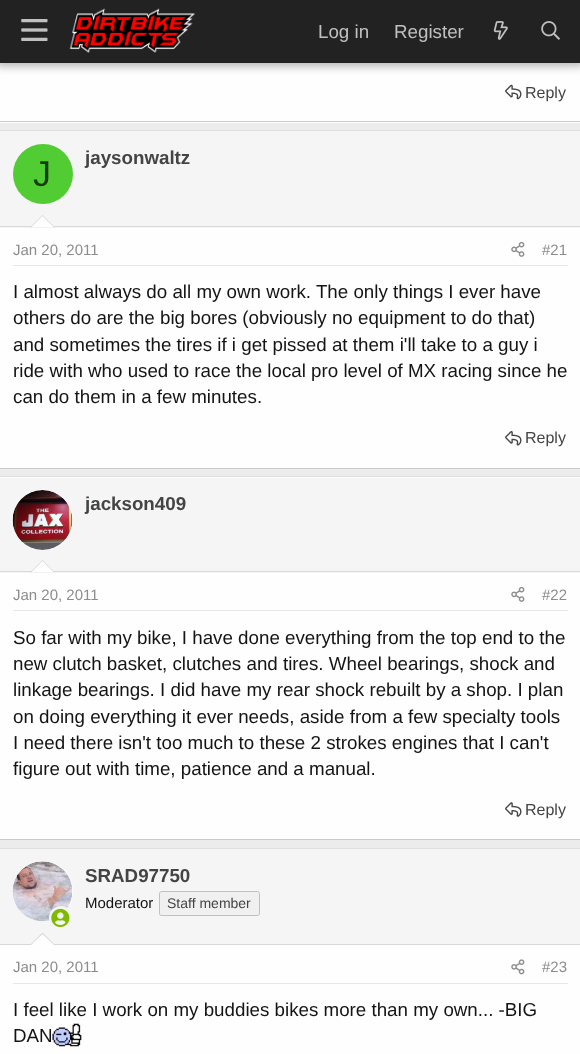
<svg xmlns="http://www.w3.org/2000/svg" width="580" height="1054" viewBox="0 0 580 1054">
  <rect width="100%" height="100%" fill="#ececec"/>
  <path d="M0 63h580v60H0z" fill="#fefefe"/>
  <path d="M-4 -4h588v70H-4z" fill="#0000004d" filter="blur(5px)"/>
  <path d="M0 0h580v63H0z" fill="#222"/>
  <image x="21" y="19" width="27" height="22" href="img/1.png"/>
  <image x="69" y="8" width="126" height="45" href="img/2.png"/>
  <image x="493" y="21" width="15" height="19" href="img/3.png"/>
  <image x="541" y="21" width="19" height="19" href="img/4.png"/>
  <path d="M0 121h580v1H0z" fill="#cbcbcb"/>
  <image x="505" y="84" width="17" height="16" href="img/5.png"/>
  <path d="M0 228h580v240H0z" fill="#fefefe"/>
  <path d="M0 130h580v1H0z" fill="#dfdfdf"/>
  <path d="M0 468h580v1H0z" fill="#cbcbcb"/>
  <path d="M0 131h580v97H0z" fill="#f5f5f5"/>
  <path d="M0 226h580v1H0z" fill="#d8d8d8"/>
  <circle cx="43" cy="174" r="30" fill="#52cc33"/>
  <path d="M55 227.5H30L42.5 215Z" fill="#d8d8d8"/>
  <path d="M54 227.5H31L42.5 216Z" fill="#fefefe"/>
  <path d="M13 265h555v1H13z" fill="#e7e7e7"/>
  <image x="511" y="241" width="14" height="16" href="img/6.png"/>
  <image x="505" y="431" width="17" height="15" href="img/7.png"/>
  <path d="M0 477h580v362H0z" fill="#fefefe"/>
  <path d="M0 476h580v1H0z" fill="#dfdfdf"/>
  <path d="M0 839h580v1H0z" fill="#cbcbcb"/>
  <path d="M0 478h580v95H0z" fill="#f5f5f5"/>
  <path d="M0 571h580v1H0z" fill="#d8d8d8"/>
  <circle cx="43" cy="520" r="30" fill="#fefefe"/>
  <image x="12" y="490" width="61" height="60" href="img/8.png"/>
  <path d="M55 572.5H30L42.5 560Z" fill="#d8d8d8"/>
  <path d="M54 572.5H31L42.5 561Z" fill="#fefefe"/>
  <path d="M13 610h555v1H13z" fill="#e7e7e7"/>
  <image x="511" y="586" width="14" height="16" href="img/6.png"/>
  <image x="505" y="802" width="17" height="15" href="img/9.png"/>
  <path d="M0 945h580v109H0z" fill="#fefefe"/>
  <path d="M0 848h580v1H0z" fill="#dfdfdf"/>
  <path d="M0 849h580v95H0z" fill="#f5f5f5"/>
  <path d="M0 944h580v1H0z" fill="#d8d8d8"/>
  <circle cx="43" cy="891" r="30" fill="#fefefe"/>
  <image x="12" y="861" width="61" height="60" href="img/10.png"/>
  <circle cx="61" cy="918" r="10.5" fill="#f5f5f5" stroke="#f5f5f5" stroke-width="3"/>
  <image x="51" y="908" width="19" height="20" href="img/11.png"/>
  <rect x="159.5" y="891.5" width="100" height="24" rx="2" fill="#f0f0f0" stroke="#c0c0c0"/>
  <path d="M55 945H30L42.5 932.5Z" fill="#d8d8d8"/>
  <path d="M54 945H31L42.5 934Z" fill="#fefefe"/>
  <path d="M13 983h555v1H13z" fill="#e7e7e7"/>
  <image x="511" y="959" width="14" height="16" href="img/12.png"/>
  <image x="52" y="1023" width="30" height="24" href="img/13.png"/>
  <g font-family="Liberation Sans" font-size="18.75" fill="#c0c0c0">
    <text x="318" y="38">Log in</text>
    <text x="394" y="38">Register</text>
  </g>
  <text x="525" y="98" font-family="Liberation Sans" font-size="16" fill="#444">Reply</text>
  <text x="85" y="164" font-family="Liberation Sans" font-size="18.75" font-weight="bold" fill="#444">jaysonwaltz</text>
  <text x="33" y="186" font-family="Liberation Sans" font-size="36" fill="#183d0f">J</text>
  <g font-family="Liberation Sans" font-size="15" fill="#8c8c8c">
    <text x="13" y="255">Jan 20, 2011</text>
    <text x="542" y="255">#21</text>
  </g>
  <g font-family="Liberation Sans" font-size="18.75" fill="#141414">
    <text x="13" y="298">I almost always do all my own work. The only things I ever have</text>
    <text x="13" y="324">others do are the big bores (obviously no equipment to do that)</text>
    <text x="13" y="351">and sometimes the tires if i get pissed at them i'll take to a guy i</text>
    <text x="13" y="377">ride with who used to race the local pro level of MX racing since he</text>
    <text x="13" y="403">can do them in a few minutes.</text>
  </g>
  <text x="525" y="443" font-family="Liberation Sans" font-size="16" fill="#444">Reply</text>
  <text x="85" y="510" font-family="Liberation Sans" font-size="18.75" font-weight="bold" fill="#444">jackson409</text>
  <g font-family="Liberation Sans" font-size="15" fill="#8c8c8c">
    <text x="13" y="600">Jan 20, 2011</text>
    <text x="542" y="600">#22</text>
  </g>
  <g font-family="Liberation Sans" font-size="18.75" fill="#141414">
    <text x="13" y="644">So far with my bike, I have done everything from the top end to the</text>
    <text x="13" y="670">new clutch basket, clutches and tires. Wheel bearings, shock and</text>
    <text x="13" y="696">linkage bearings. I did have my rear shock rebuilt by a shop. I plan</text>
    <text x="13" y="723">on doing everything it ever needs, aside from a few specialty tools</text>
    <text x="13" y="749">I need there isn't too much to these 2 strokes engines that I can't</text>
    <text x="13" y="775">figure out with time, patience and a manual.</text>
  </g>
  <text x="525" y="815" font-family="Liberation Sans" font-size="16" fill="#444">Reply</text>
  <text x="85" y="882" font-family="Liberation Sans" font-size="18.75" font-weight="bold" fill="#444">SRAD97750</text>
  <text x="85" y="908" font-family="Liberation Sans" font-size="15" fill="#141414">Moderator</text>
  <text x="167" y="908" font-family="Liberation Sans" font-size="14" fill="#444">Staff member</text>
  <g font-family="Liberation Sans" font-size="15" fill="#8c8c8c">
    <text x="13" y="972">Jan 20, 2011</text>
    <text x="542" y="972">#23</text>
  </g>
  <g font-family="Liberation Sans" font-size="18.75" fill="#141414">
    <text x="13" y="1016">I feel like I work on my buddies bikes more than my own... -BIG</text>
    <text x="13" y="1042">DAN</text>
  </g>
</svg>
